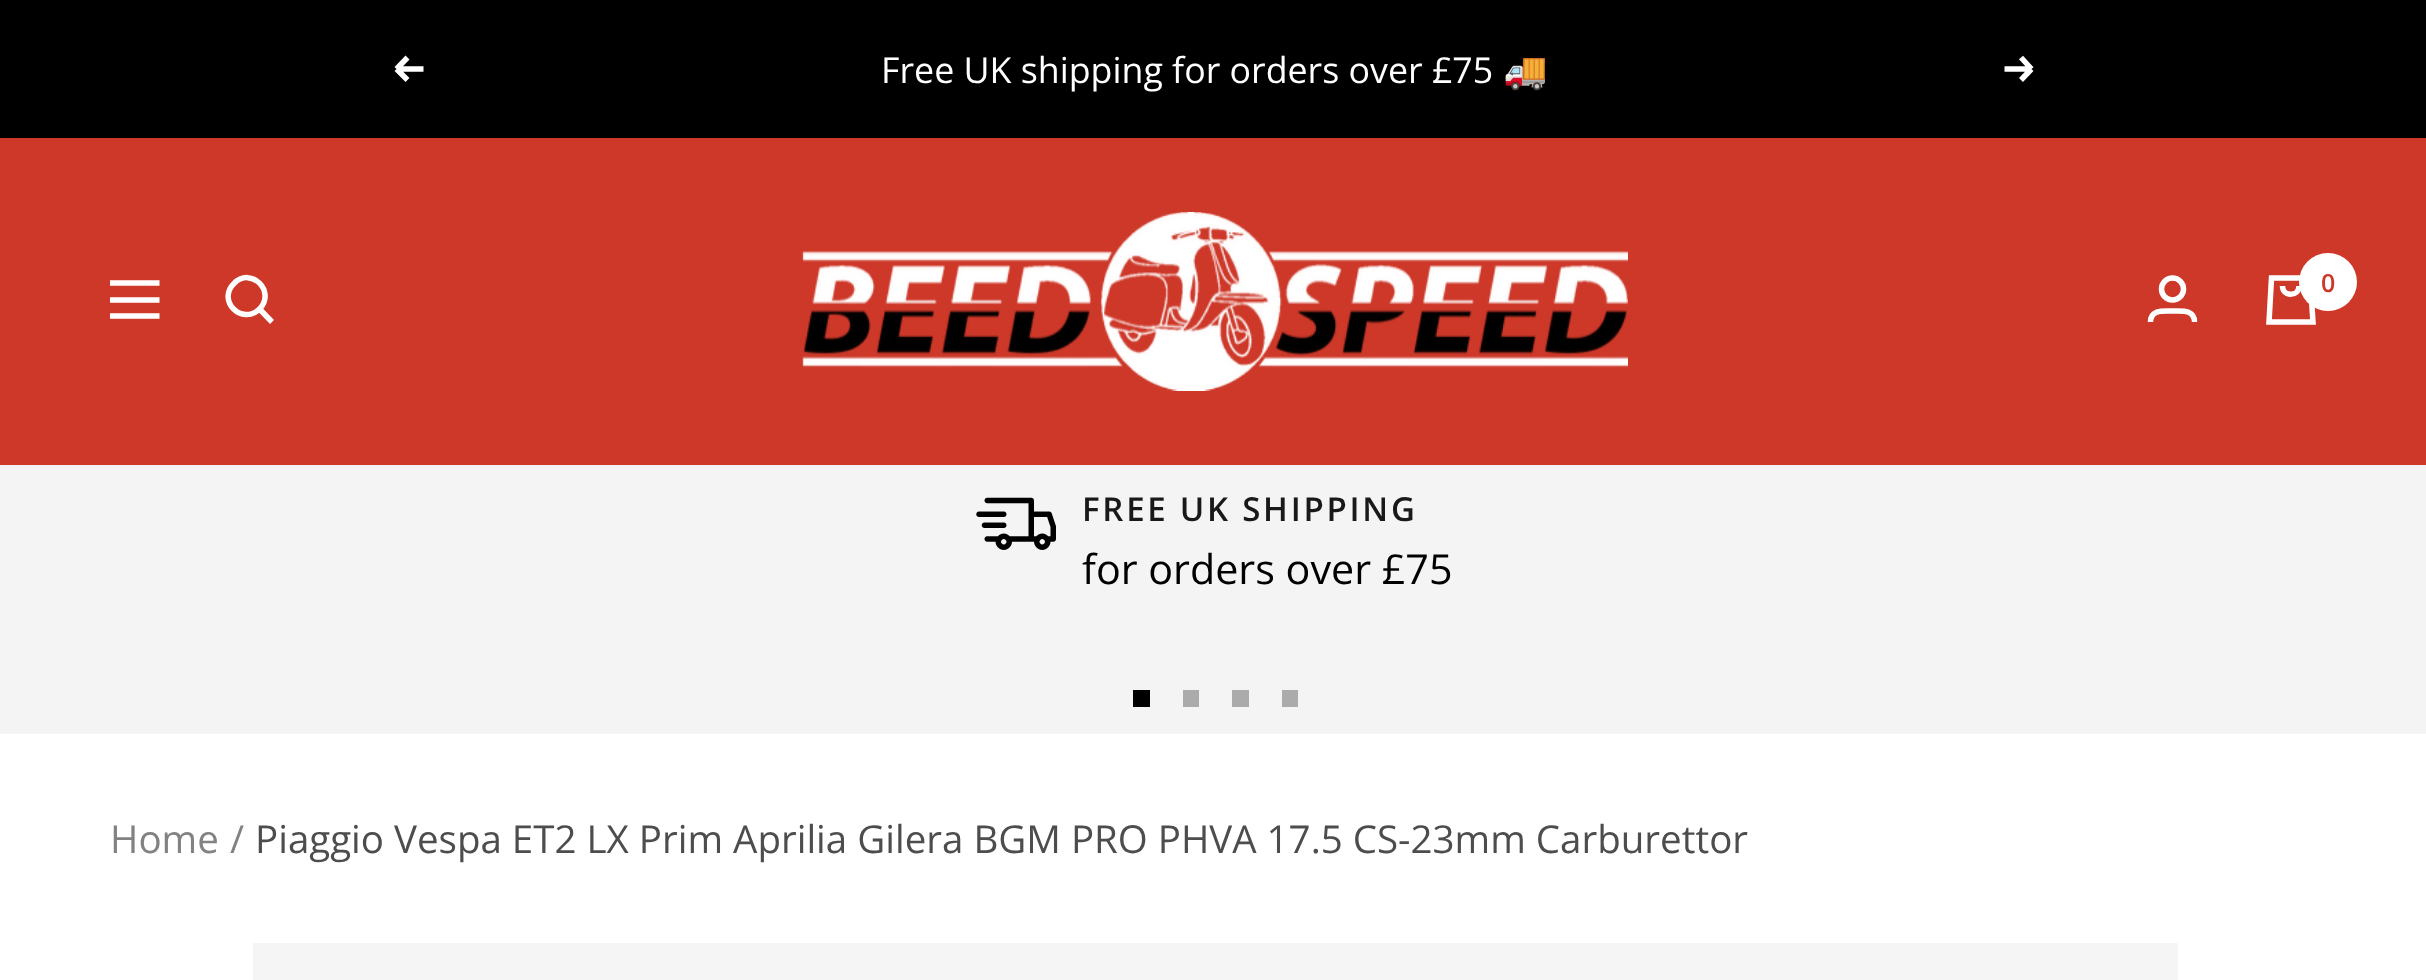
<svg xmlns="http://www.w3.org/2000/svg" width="2426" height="980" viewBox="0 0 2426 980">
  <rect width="100%" height="100%" fill="#fff"/>
  <path d="M0 0h2426v138H0z" fill="#000"/>
  <path d="M423.5 69H396.5M396.5 69L407.5 80M396.5 69L407.5 57.5" fill="none" stroke="#fff" stroke-width="5.5"/>
  <path d="M2004.5 69H2031.5M2031.5 69L2021 80M2031.5 69L2021 57.5" fill="none" stroke="#fff" stroke-width="5.5"/>
  <path d="M0 138h2426v327H0z" fill="#cd3829"/>
  <path d="M110 283H159.5M110 316H159.5ZM110 300H159.5Z" fill="none" stroke="#fff" stroke-width="5.5"/>
  <path d="M259.5 309C276.5 291.5 251 266 234 283.5C216.5 300.5 242 326 259.5 309ZM259.5 309L272 322" fill="none" stroke="#fff" stroke-width="5.5"/>
  <image x="802" y="212" width="826" height="179" href="img/1.png"/>
  <circle cx="2172.5" cy="289" r="11" fill="none" stroke="#fff" stroke-width="5.5"/>
  <path d="M2150.5 322C2150.5 309 2164 311 2172.5 311C2181 311 2194.5 309 2194.5 322" fill="none" stroke="#fff" stroke-width="5.5"/>
  <path d="M2271.5 278H2310L2313 322H2269ZM2282.5 286C2282.5 297 2299 297 2299 286" fill="none" stroke="#fff" stroke-width="5.5"/>
  <circle cx="2328" cy="282" r="29" fill="#fff"/>
  <path d="M0 465h2426v269H0z" fill="#f4f4f4"/>
  <image x="976" y="497" width="80" height="53" href="img/2.png"/>
  <path d="M1133 690h17v17H1133z" fill="#000"/>
  <path d="M1183 690h16v17H1183z" fill="#ababab"/>
  <path d="M1232 690h17v17H1232z" fill="#ababab"/>
  <path d="M1282 690h16v17H1282z" fill="#ababab"/>
  <path d="M253 943h1925v37H253z" fill="#f5f5f5"/>
  <text x="881" y="83" font-family="Open Sans" font-size="35.75" fill="#fff">Free UK shipping for orders over £75</text>
  <text x="1503" y="83" font-family="Noto Color Emoji" font-size="35.75" fill="#fff">🚚</text>
  <text x="2321" y="292" font-family="Open Sans" font-size="25" font-weight="600" fill="#cd3829">0</text>
  <text x="1082" y="521" font-family="Open Sans" font-size="33" font-weight="600" letter-spacing="2.75" fill="#191919">FREE UK SHIPPING</text>
  <text x="1082" y="584" font-family="Open Sans" font-size="41.25" fill="#000">for orders over £75</text>
  <g font-family="Open Sans" font-size="38.5" fill="#828282">
    <text x="110" y="853">Home</text>
    <text x="230" y="853">/</text>
  </g>
  <text x="255" y="853" font-family="Open Sans" font-size="38.5" fill="#4d4d4d">Piaggio Vespa ET2 LX Prim Aprilia Gilera BGM PRO PHVA 17.5 CS-23mm Carburettor</text>
</svg>
